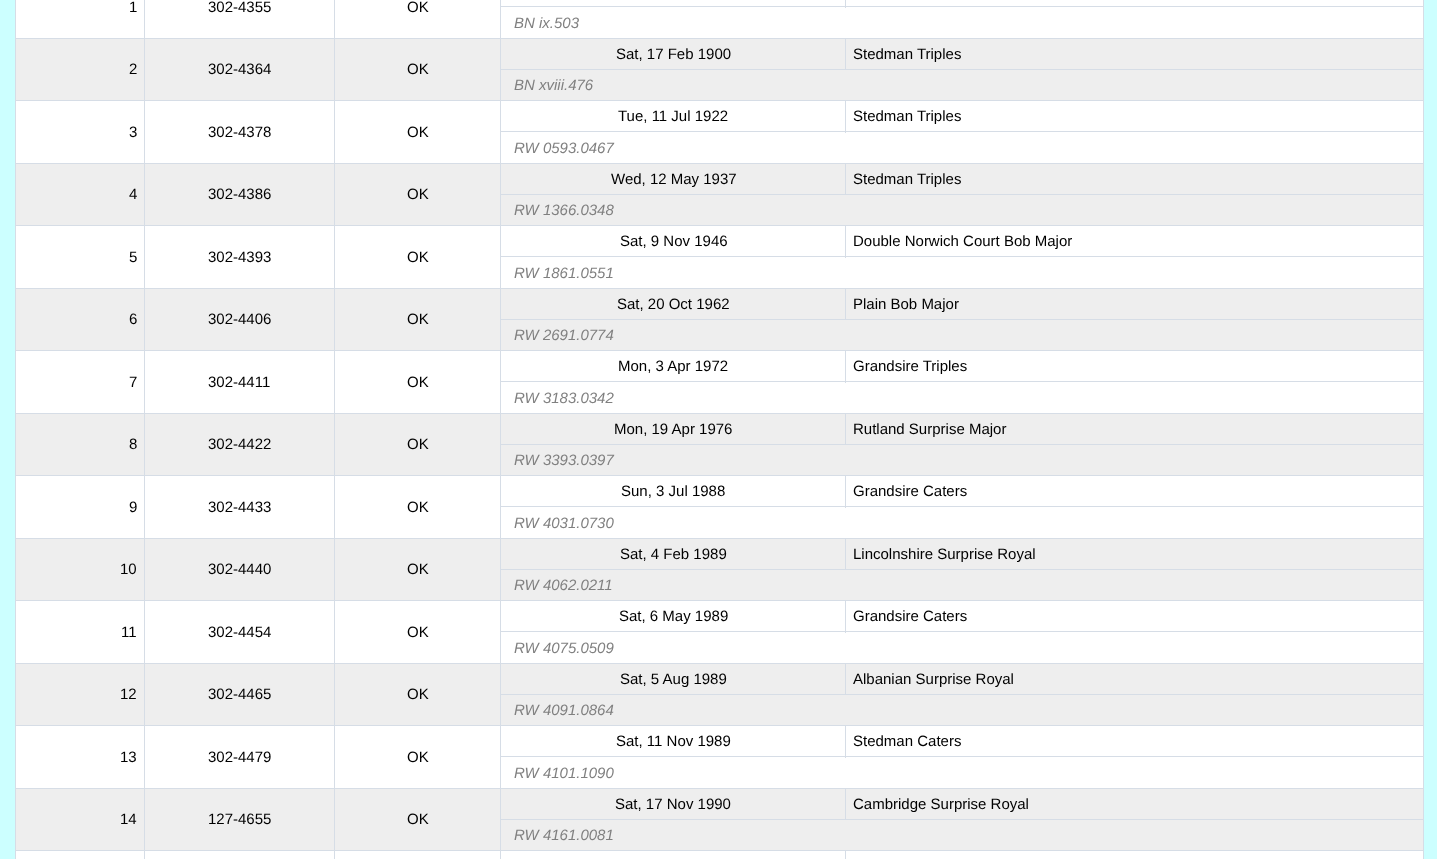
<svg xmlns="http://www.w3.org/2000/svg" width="1437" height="859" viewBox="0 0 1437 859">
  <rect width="100%" height="100%" fill="#cff"/>
  <path d="M1423 0h1v859H1423z" fill="#d6dde6"/>
  <path d="M15 0h1408v8H15z" fill="#fff"/>
  <path d="M15 851h1408v8H15z" fill="#fff"/>
  <path d="M15 0h1v859H15z" fill="#d6dde6"/>
  <path d="M16 8h1407v30H16z" fill="#fff"/>
  <path d="M845 38h579v1H845z" fill="#d6dde6"/>
  <path d="M16 39h1407v61H16z" fill="#eee"/>
  <path d="M500 69h924v1H500z" fill="#d6dde6"/>
  <path d="M845 38h1v32H845z" fill="#d6dde6"/>
  <path d="M500 38h346v1H500z" fill="#d6dde6"/>
  <path d="M845 100h579v1H845z" fill="#d6dde6"/>
  <path d="M16 101h1407v62H16z" fill="#fff"/>
  <path d="M500 131h924v1H500z" fill="#d6dde6"/>
  <path d="M845 100h1v33H845z" fill="#d6dde6"/>
  <path d="M500 100h346v1H500z" fill="#d6dde6"/>
  <path d="M845 163h579v1H845z" fill="#d6dde6"/>
  <path d="M16 164h1407v61H16z" fill="#eee"/>
  <path d="M500 194h924v1H500z" fill="#d6dde6"/>
  <path d="M845 163h1v32H845z" fill="#d6dde6"/>
  <path d="M500 163h346v1H500z" fill="#d6dde6"/>
  <path d="M845 225h579v1H845z" fill="#d6dde6"/>
  <path d="M16 226h1407v62H16z" fill="#fff"/>
  <path d="M500 256h924v1H500z" fill="#d6dde6"/>
  <path d="M845 225h1v33H845z" fill="#d6dde6"/>
  <path d="M500 225h346v1H500z" fill="#d6dde6"/>
  <path d="M845 288h579v1H845z" fill="#d6dde6"/>
  <path d="M16 289h1407v61H16z" fill="#eee"/>
  <path d="M500 319h924v1H500z" fill="#d6dde6"/>
  <path d="M845 288h1v32H845z" fill="#d6dde6"/>
  <path d="M500 288h346v1H500z" fill="#d6dde6"/>
  <path d="M845 350h579v1H845z" fill="#d6dde6"/>
  <path d="M16 351h1407v62H16z" fill="#fff"/>
  <path d="M500 381h924v1H500z" fill="#d6dde6"/>
  <path d="M845 350h1v33H845z" fill="#d6dde6"/>
  <path d="M500 350h346v1H500z" fill="#d6dde6"/>
  <path d="M845 413h579v1H845z" fill="#d6dde6"/>
  <path d="M16 414h1407v61H16z" fill="#eee"/>
  <path d="M500 444h924v1H500z" fill="#d6dde6"/>
  <path d="M845 413h1v32H845z" fill="#d6dde6"/>
  <path d="M500 413h346v1H500z" fill="#d6dde6"/>
  <path d="M845 475h579v1H845z" fill="#d6dde6"/>
  <path d="M16 476h1407v62H16z" fill="#fff"/>
  <path d="M500 506h924v1H500z" fill="#d6dde6"/>
  <path d="M845 475h1v33H845z" fill="#d6dde6"/>
  <path d="M500 475h346v1H500z" fill="#d6dde6"/>
  <path d="M845 538h579v1H845z" fill="#d6dde6"/>
  <path d="M16 539h1407v61H16z" fill="#eee"/>
  <path d="M500 569h924v1H500z" fill="#d6dde6"/>
  <path d="M845 538h1v32H845z" fill="#d6dde6"/>
  <path d="M500 538h346v1H500z" fill="#d6dde6"/>
  <path d="M845 600h579v1H845z" fill="#d6dde6"/>
  <path d="M16 601h1407v62H16z" fill="#fff"/>
  <path d="M500 631h924v1H500z" fill="#d6dde6"/>
  <path d="M845 600h1v33H845z" fill="#d6dde6"/>
  <path d="M500 600h346v1H500z" fill="#d6dde6"/>
  <path d="M845 663h579v1H845z" fill="#d6dde6"/>
  <path d="M16 664h1407v61H16z" fill="#eee"/>
  <path d="M500 694h924v1H500z" fill="#d6dde6"/>
  <path d="M845 663h1v32H845z" fill="#d6dde6"/>
  <path d="M500 663h346v1H500z" fill="#d6dde6"/>
  <path d="M845 725h579v1H845z" fill="#d6dde6"/>
  <path d="M16 726h1407v62H16z" fill="#fff"/>
  <path d="M500 756h924v1H500z" fill="#d6dde6"/>
  <path d="M845 725h1v33H845z" fill="#d6dde6"/>
  <path d="M500 725h346v1H500z" fill="#d6dde6"/>
  <path d="M845 788h579v1H845z" fill="#d6dde6"/>
  <path d="M16 789h1407v61H16z" fill="#eee"/>
  <path d="M500 819h924v1H500z" fill="#d6dde6"/>
  <path d="M845 788h1v32H845z" fill="#d6dde6"/>
  <path d="M500 788h346v1H500z" fill="#d6dde6"/>
  <path d="M845 850h579v1H845z" fill="#d6dde6"/>
  <path d="M845 850h1v9H845z" fill="#d6dde6"/>
  <path d="M500 850h346v1H500z" fill="#d6dde6"/>
  <path d="M500 850h1v9H500z" fill="#d6dde6"/>
  <path d="M334 850h167v1H334z" fill="#d6dde6"/>
  <path d="M500 819h1v32H500z" fill="#d6dde6"/>
  <path d="M500 788h1v32H500z" fill="#d6dde6"/>
  <path d="M334 788h167v1H334z" fill="#d6dde6"/>
  <path d="M500 756h1v33H500z" fill="#d6dde6"/>
  <path d="M500 725h1v33H500z" fill="#d6dde6"/>
  <path d="M334 725h167v1H334z" fill="#d6dde6"/>
  <path d="M500 694h1v32H500z" fill="#d6dde6"/>
  <path d="M500 663h1v32H500z" fill="#d6dde6"/>
  <path d="M334 663h167v1H334z" fill="#d6dde6"/>
  <path d="M500 631h1v33H500z" fill="#d6dde6"/>
  <path d="M500 600h1v33H500z" fill="#d6dde6"/>
  <path d="M334 600h167v1H334z" fill="#d6dde6"/>
  <path d="M500 569h1v32H500z" fill="#d6dde6"/>
  <path d="M500 538h1v32H500z" fill="#d6dde6"/>
  <path d="M334 538h167v1H334z" fill="#d6dde6"/>
  <path d="M500 506h1v33H500z" fill="#d6dde6"/>
  <path d="M500 475h1v33H500z" fill="#d6dde6"/>
  <path d="M334 475h167v1H334z" fill="#d6dde6"/>
  <path d="M500 444h1v32H500z" fill="#d6dde6"/>
  <path d="M500 413h1v32H500z" fill="#d6dde6"/>
  <path d="M334 413h167v1H334z" fill="#d6dde6"/>
  <path d="M500 381h1v33H500z" fill="#d6dde6"/>
  <path d="M500 350h1v33H500z" fill="#d6dde6"/>
  <path d="M334 350h167v1H334z" fill="#d6dde6"/>
  <path d="M500 319h1v32H500z" fill="#d6dde6"/>
  <path d="M500 288h1v32H500z" fill="#d6dde6"/>
  <path d="M334 288h167v1H334z" fill="#d6dde6"/>
  <path d="M500 256h1v33H500z" fill="#d6dde6"/>
  <path d="M500 225h1v33H500z" fill="#d6dde6"/>
  <path d="M334 225h167v1H334z" fill="#d6dde6"/>
  <path d="M500 194h1v32H500z" fill="#d6dde6"/>
  <path d="M500 163h1v32H500z" fill="#d6dde6"/>
  <path d="M334 163h167v1H334z" fill="#d6dde6"/>
  <path d="M500 131h1v33H500z" fill="#d6dde6"/>
  <path d="M500 100h1v33H500z" fill="#d6dde6"/>
  <path d="M334 100h167v1H334z" fill="#d6dde6"/>
  <path d="M500 69h1v32H500z" fill="#d6dde6"/>
  <path d="M500 38h1v32H500z" fill="#d6dde6"/>
  <path d="M334 38h167v1H334z" fill="#d6dde6"/>
  <path d="M334 850h1v9H334z" fill="#d6dde6"/>
  <path d="M144 850h191v1H144z" fill="#d6dde6"/>
  <path d="M334 788h1v63H334z" fill="#d6dde6"/>
  <path d="M144 788h191v1H144z" fill="#d6dde6"/>
  <path d="M334 725h1v64H334z" fill="#d6dde6"/>
  <path d="M144 725h191v1H144z" fill="#d6dde6"/>
  <path d="M334 663h1v63H334z" fill="#d6dde6"/>
  <path d="M144 663h191v1H144z" fill="#d6dde6"/>
  <path d="M334 600h1v64H334z" fill="#d6dde6"/>
  <path d="M144 600h191v1H144z" fill="#d6dde6"/>
  <path d="M334 538h1v63H334z" fill="#d6dde6"/>
  <path d="M144 538h191v1H144z" fill="#d6dde6"/>
  <path d="M334 475h1v64H334z" fill="#d6dde6"/>
  <path d="M144 475h191v1H144z" fill="#d6dde6"/>
  <path d="M334 413h1v63H334z" fill="#d6dde6"/>
  <path d="M144 413h191v1H144z" fill="#d6dde6"/>
  <path d="M334 350h1v64H334z" fill="#d6dde6"/>
  <path d="M144 350h191v1H144z" fill="#d6dde6"/>
  <path d="M334 288h1v63H334z" fill="#d6dde6"/>
  <path d="M144 288h191v1H144z" fill="#d6dde6"/>
  <path d="M334 225h1v64H334z" fill="#d6dde6"/>
  <path d="M144 225h191v1H144z" fill="#d6dde6"/>
  <path d="M334 163h1v63H334z" fill="#d6dde6"/>
  <path d="M144 163h191v1H144z" fill="#d6dde6"/>
  <path d="M334 100h1v64H334z" fill="#d6dde6"/>
  <path d="M144 100h191v1H144z" fill="#d6dde6"/>
  <path d="M334 38h1v63H334z" fill="#d6dde6"/>
  <path d="M144 38h191v1H144z" fill="#d6dde6"/>
  <path d="M144 850h1v9H144z" fill="#d6dde6"/>
  <path d="M15 850h130v1H15z" fill="#d6dde6"/>
  <path d="M144 788h1v63H144z" fill="#d6dde6"/>
  <path d="M15 788h130v1H15z" fill="#d6dde6"/>
  <path d="M144 725h1v64H144z" fill="#d6dde6"/>
  <path d="M15 725h130v1H15z" fill="#d6dde6"/>
  <path d="M144 663h1v63H144z" fill="#d6dde6"/>
  <path d="M15 663h130v1H15z" fill="#d6dde6"/>
  <path d="M144 600h1v64H144z" fill="#d6dde6"/>
  <path d="M15 600h130v1H15z" fill="#d6dde6"/>
  <path d="M144 538h1v63H144z" fill="#d6dde6"/>
  <path d="M15 538h130v1H15z" fill="#d6dde6"/>
  <path d="M144 475h1v64H144z" fill="#d6dde6"/>
  <path d="M15 475h130v1H15z" fill="#d6dde6"/>
  <path d="M144 413h1v63H144z" fill="#d6dde6"/>
  <path d="M15 413h130v1H15z" fill="#d6dde6"/>
  <path d="M144 350h1v64H144z" fill="#d6dde6"/>
  <path d="M15 350h130v1H15z" fill="#d6dde6"/>
  <path d="M144 288h1v63H144z" fill="#d6dde6"/>
  <path d="M15 288h130v1H15z" fill="#d6dde6"/>
  <path d="M144 225h1v64H144z" fill="#d6dde6"/>
  <path d="M15 225h130v1H15z" fill="#d6dde6"/>
  <path d="M144 163h1v63H144z" fill="#d6dde6"/>
  <path d="M15 163h130v1H15z" fill="#d6dde6"/>
  <path d="M144 100h1v64H144z" fill="#d6dde6"/>
  <path d="M15 100h130v1H15z" fill="#d6dde6"/>
  <path d="M144 38h1v63H144z" fill="#d6dde6"/>
  <path d="M15 38h130v1H15z" fill="#d6dde6"/>
  <path d="M144 0h1v39H144z" fill="#d6dde6"/>
  <path d="M334 0h1v39H334z" fill="#d6dde6"/>
  <path d="M500 6h924v1H500z" fill="#d6dde6"/>
  <path d="M845 0h1v8H845z" fill="#d6dde6"/>
  <path d="M500 0h1v39H500z" fill="#d6dde6"/>
  <g font-family="Liberation Sans" font-size="15" fill="#000">
    <text x="129" y="12">1</text>
    <text x="208" y="12">302-4355</text>
    <text x="407" y="12">OK</text>
  </g>
  <text x="514" y="28" font-family="Liberation Sans" font-size="15" font-style="italic" fill="#808080">BN ix.503</text>
  <g font-family="Liberation Sans" font-size="15" fill="#000">
    <text x="616" y="59">Sat, 17 Feb 1900</text>
    <text x="853" y="59">Stedman Triples</text>
    <text x="129" y="74">2</text>
    <text x="208" y="74">302-4364</text>
    <text x="407" y="74">OK</text>
  </g>
  <text x="514" y="90" font-family="Liberation Sans" font-size="15" font-style="italic" fill="#808080">BN xviii.476</text>
  <g font-family="Liberation Sans" font-size="15" fill="#000">
    <text x="618" y="121">Tue, 11 Jul 1922</text>
    <text x="853" y="121">Stedman Triples</text>
    <text x="129" y="137">3</text>
    <text x="208" y="137">302-4378</text>
    <text x="407" y="137">OK</text>
  </g>
  <text x="514" y="153" font-family="Liberation Sans" font-size="15" font-style="italic" fill="#808080">RW 0593.0467</text>
  <g font-family="Liberation Sans" font-size="15" fill="#000">
    <text x="611" y="184">Wed, 12 May 1937</text>
    <text x="853" y="184">Stedman Triples</text>
    <text x="129" y="199">4</text>
    <text x="208" y="199">302-4386</text>
    <text x="407" y="199">OK</text>
  </g>
  <text x="514" y="215" font-family="Liberation Sans" font-size="15" font-style="italic" fill="#808080">RW 1366.0348</text>
  <g font-family="Liberation Sans" font-size="15" fill="#000">
    <text x="620" y="246">Sat, 9 Nov 1946</text>
    <text x="853" y="246">Double Norwich Court Bob Major</text>
    <text x="129" y="262">5</text>
    <text x="208" y="262">302-4393</text>
    <text x="407" y="262">OK</text>
  </g>
  <text x="514" y="278" font-family="Liberation Sans" font-size="15" font-style="italic" fill="#808080">RW 1861.0551</text>
  <g font-family="Liberation Sans" font-size="15" fill="#000">
    <text x="617" y="309">Sat, 20 Oct 1962</text>
    <text x="853" y="309">Plain Bob Major</text>
    <text x="129" y="324">6</text>
    <text x="208" y="324">302-4406</text>
    <text x="407" y="324">OK</text>
  </g>
  <text x="514" y="340" font-family="Liberation Sans" font-size="15" font-style="italic" fill="#808080">RW 2691.0774</text>
  <g font-family="Liberation Sans" font-size="15" fill="#000">
    <text x="618" y="371">Mon, 3 Apr 1972</text>
    <text x="853" y="371">Grandsire Triples</text>
    <text x="129" y="387">7</text>
    <text x="208" y="387">302-4411</text>
    <text x="407" y="387">OK</text>
  </g>
  <text x="514" y="403" font-family="Liberation Sans" font-size="15" font-style="italic" fill="#808080">RW 3183.0342</text>
  <g font-family="Liberation Sans" font-size="15" fill="#000">
    <text x="614" y="434">Mon, 19 Apr 1976</text>
    <text x="853" y="434">Rutland Surprise Major</text>
    <text x="129" y="449">8</text>
    <text x="208" y="449">302-4422</text>
    <text x="407" y="449">OK</text>
  </g>
  <text x="514" y="465" font-family="Liberation Sans" font-size="15" font-style="italic" fill="#808080">RW 3393.0397</text>
  <g font-family="Liberation Sans" font-size="15" fill="#000">
    <text x="621" y="496">Sun, 3 Jul 1988</text>
    <text x="853" y="496">Grandsire Caters</text>
    <text x="129" y="512">9</text>
    <text x="208" y="512">302-4433</text>
    <text x="407" y="512">OK</text>
  </g>
  <text x="514" y="528" font-family="Liberation Sans" font-size="15" font-style="italic" fill="#808080">RW 4031.0730</text>
  <g font-family="Liberation Sans" font-size="15" fill="#000">
    <text x="620" y="559">Sat, 4 Feb 1989</text>
    <text x="853" y="559">Lincolnshire Surprise Royal</text>
    <text x="120" y="574">10</text>
    <text x="208" y="574">302-4440</text>
    <text x="407" y="574">OK</text>
  </g>
  <text x="514" y="590" font-family="Liberation Sans" font-size="15" font-style="italic" fill="#808080">RW 4062.0211</text>
  <g font-family="Liberation Sans" font-size="15" fill="#000">
    <text x="619" y="621">Sat, 6 May 1989</text>
    <text x="853" y="621">Grandsire Caters</text>
    <text x="121" y="637">11</text>
    <text x="208" y="637">302-4454</text>
    <text x="407" y="637">OK</text>
  </g>
  <text x="514" y="653" font-family="Liberation Sans" font-size="15" font-style="italic" fill="#808080">RW 4075.0509</text>
  <g font-family="Liberation Sans" font-size="15" fill="#000">
    <text x="620" y="684">Sat, 5 Aug 1989</text>
    <text x="853" y="684">Albanian Surprise Royal</text>
    <text x="120" y="699">12</text>
    <text x="208" y="699">302-4465</text>
    <text x="407" y="699">OK</text>
  </g>
  <text x="514" y="715" font-family="Liberation Sans" font-size="15" font-style="italic" fill="#808080">RW 4091.0864</text>
  <g font-family="Liberation Sans" font-size="15" fill="#000">
    <text x="616" y="746">Sat, 11 Nov 1989</text>
    <text x="853" y="746">Stedman Caters</text>
    <text x="120" y="762">13</text>
    <text x="208" y="762">302-4479</text>
    <text x="407" y="762">OK</text>
  </g>
  <text x="514" y="778" font-family="Liberation Sans" font-size="15" font-style="italic" fill="#808080">RW 4101.1090</text>
  <g font-family="Liberation Sans" font-size="15" fill="#000">
    <text x="615" y="809">Sat, 17 Nov 1990</text>
    <text x="853" y="809">Cambridge Surprise Royal</text>
    <text x="120" y="824">14</text>
    <text x="208" y="824">127-4655</text>
    <text x="407" y="824">OK</text>
  </g>
  <text x="514" y="840" font-family="Liberation Sans" font-size="15" font-style="italic" fill="#808080">RW 4161.0081</text>
</svg>
